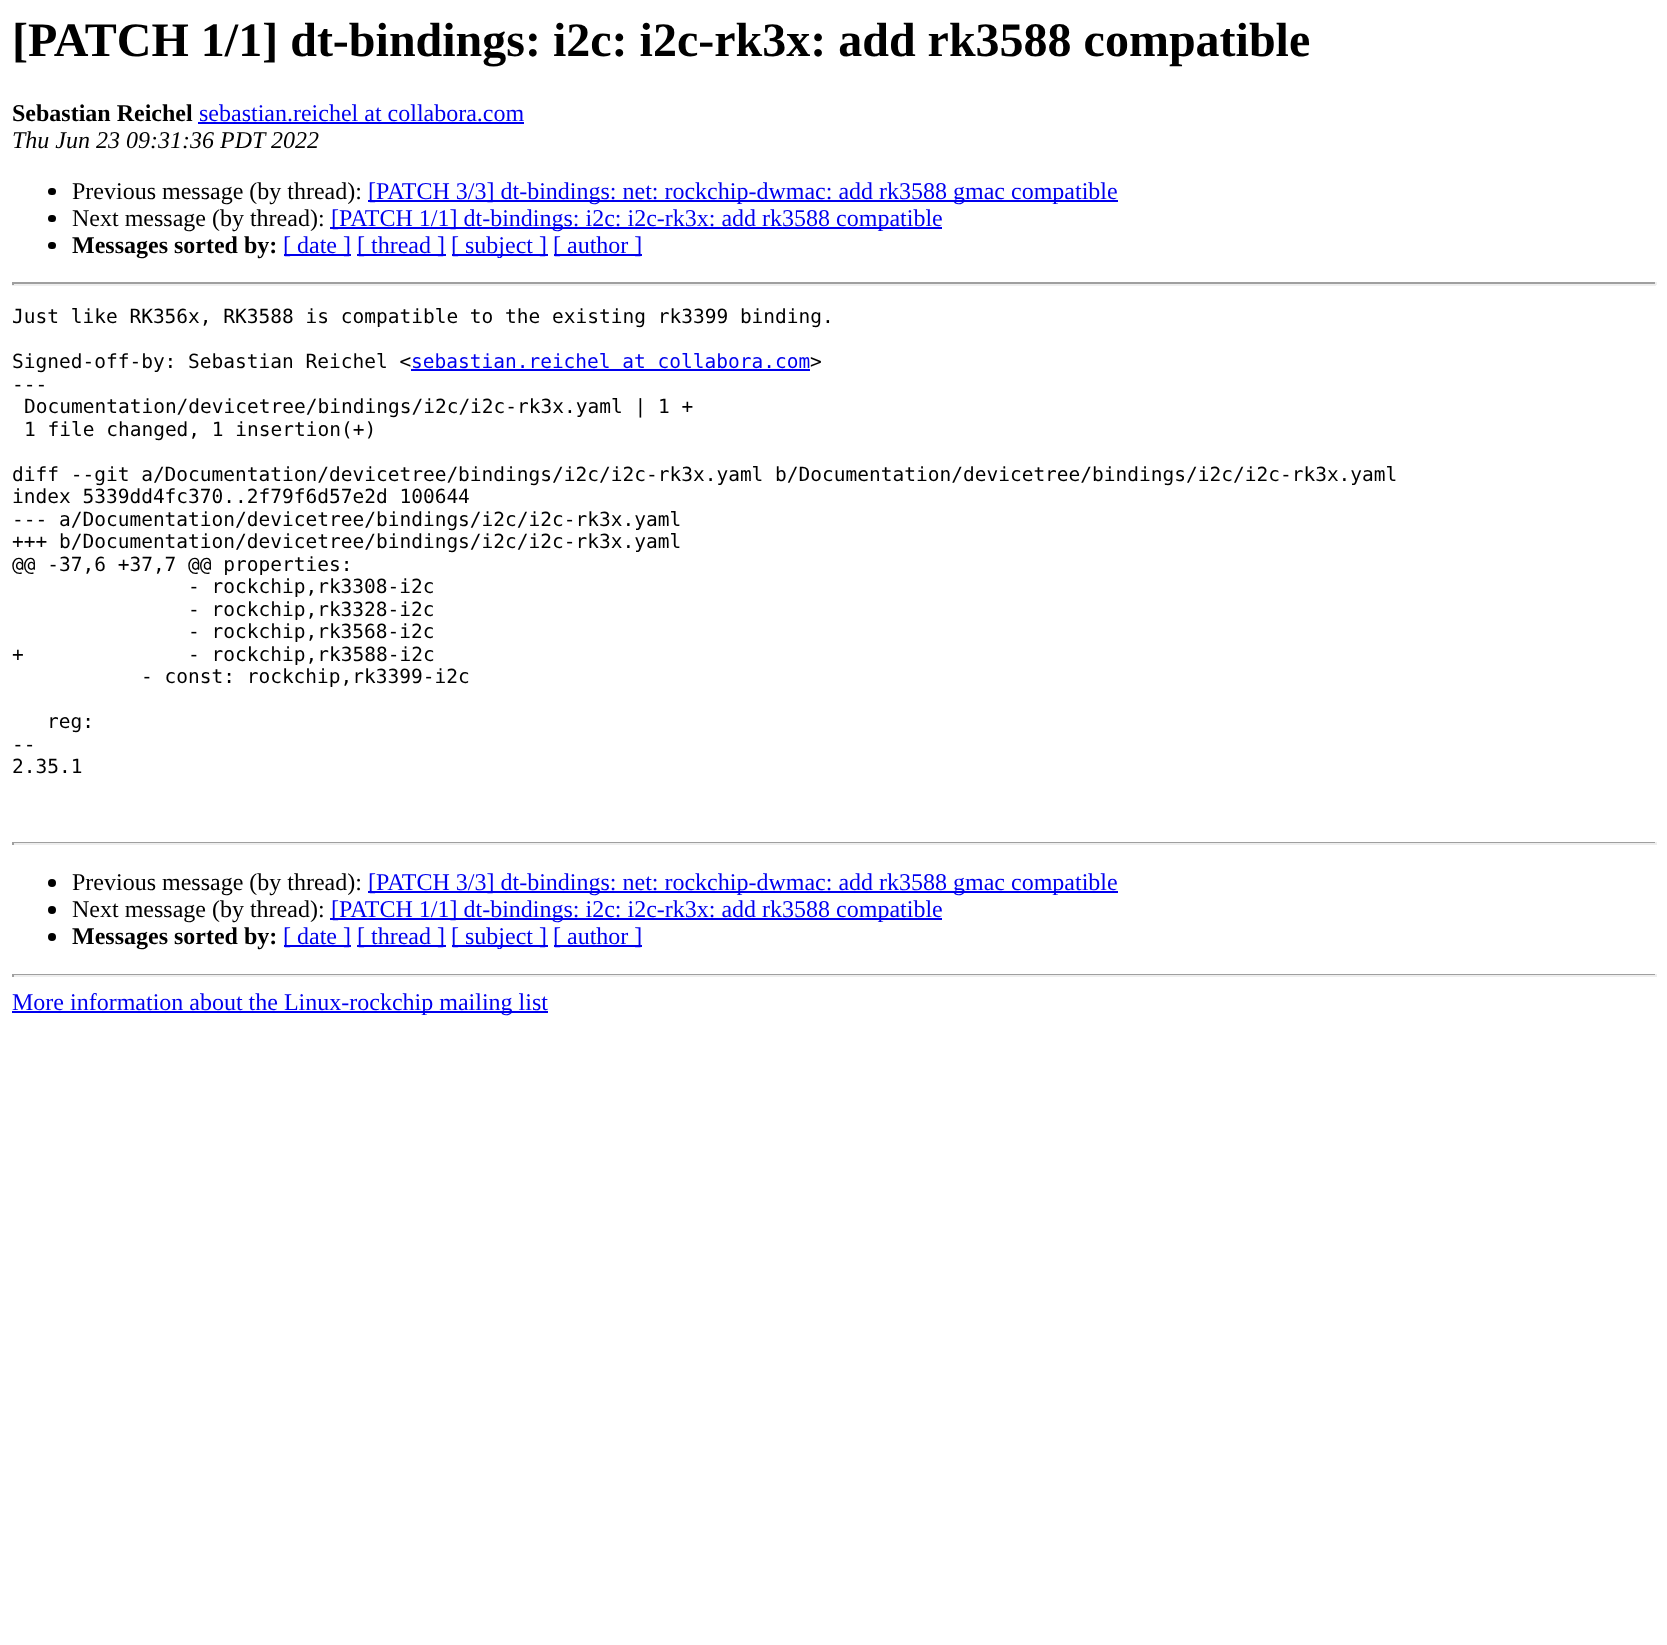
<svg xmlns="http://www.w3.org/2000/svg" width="1667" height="1645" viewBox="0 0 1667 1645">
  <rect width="100%" height="100%" fill="#fff"/>
  <path d="M198 122h326v2H198z" fill="#00e"/>
  <rect x="48" y="188" width="8" height="7" rx="3.5" fill="#000"/>
  <path d="M368 200h750v2H368z" fill="#00e"/>
  <rect x="48" y="215" width="8" height="7" rx="3.5" fill="#000"/>
  <path d="M330 227h612v2H330z" fill="#00e"/>
  <rect x="48" y="242" width="8" height="7" rx="3.5" fill="#000"/>
  <path d="M284 254h67v2H284z" fill="#00e"/>
  <path d="M357 254h89v2H357z" fill="#00e"/>
  <path d="M452 254h96v2H452z" fill="#00e"/>
  <path d="M554 254h88v2H554z" fill="#00e"/>
  <path d="M12 282h1644v2H12z" fill="#9f9f9f"/>
  <path d="M1655 282h2v3H1655z" fill="#eee"/>
  <path d="M12 284h1644v2H12z" fill="#eee"/>
  <path d="M12 282h2v3H12z" fill="#9f9f9f"/>
  <path d="M411 369h399v2H411z" fill="#00e"/>
  <path d="M12 842h1644v1H12z" fill="#9f9f9f"/>
  <path d="M1655 842h2v3H1655z" fill="#eee"/>
  <path d="M12 843h1644v2H12z" fill="#eee"/>
  <path d="M12 842h2v3H12z" fill="#9f9f9f"/>
  <circle cx="52" cy="883" r="4" fill="#000"/>
  <path d="M368 891h750v2H368z" fill="#00e"/>
  <circle cx="52" cy="910" r="4" fill="#000"/>
  <path d="M330 918h612v2H330z" fill="#00e"/>
  <circle cx="52" cy="937" r="4" fill="#000"/>
  <path d="M284 945h67v2H284z" fill="#00e"/>
  <path d="M357 945h89v2H357z" fill="#00e"/>
  <path d="M452 945h96v2H452z" fill="#00e"/>
  <path d="M554 945h88v2H554z" fill="#00e"/>
  <path d="M12 974h1644v1H12z" fill="#9f9f9f"/>
  <path d="M1655 974h2v3H1655z" fill="#eee"/>
  <path d="M12 975h1644v2H12z" fill="#eee"/>
  <path d="M12 974h2v3H12z" fill="#9f9f9f"/>
  <path d="M12 1011h536v2H12z" fill="#00e"/>
  <text x="12" y="56" font-family="Liberation Serif" font-size="48" font-weight="bold" fill="#000">[PATCH 1/1] dt-bindings: i2c: i2c-rk3x: add rk3588 compatible</text>
  <text x="12" y="121" font-family="Liberation Serif" font-size="24" font-weight="bold" fill="#000">Sebastian Reichel</text>
  <text x="199" y="121" font-family="Liberation Serif" font-size="24" fill="#00e">sebastian.reichel at collabora.com</text>
  <text x="12" y="148" font-family="Liberation Serif" font-size="24" font-style="italic" fill="#000">Thu Jun 23 09:31:36 PDT 2022</text>
  <text x="72" y="199" font-family="Liberation Serif" font-size="24" fill="#000">Previous message (by thread):</text>
  <text x="368" y="199" font-family="Liberation Serif" font-size="24" fill="#00e">[PATCH 3/3] dt-bindings: net: rockchip-dwmac: add rk3588 gmac compatible</text>
  <text x="72" y="226" font-family="Liberation Serif" font-size="24" fill="#000">Next message (by thread):</text>
  <text x="331" y="226" font-family="Liberation Serif" font-size="24" fill="#00e">[PATCH 1/1] dt-bindings: i2c: i2c-rk3x: add rk3588 compatible</text>
  <text x="72" y="253" font-family="Liberation Serif" font-size="24" font-weight="bold" fill="#000">Messages sorted by:</text>
  <g font-family="Liberation Serif" font-size="24" fill="#00e">
    <text x="283" y="253">[ date ]</text>
    <text x="357" y="253">[ thread ]</text>
    <text x="451" y="253">[ subject ]</text>
    <text x="553" y="253">[ author ]</text>
  </g>
  <g font-family="DejaVu Sans Mono" font-size="19.5" fill="#000">
    <text x="12" y="323">Just like RK356x, RK3588 is compatible to the existing rk3399 binding.</text>
    <text x="12" y="368">Signed-off-by: Sebastian Reichel &lt;</text>
  </g>
  <text x="411" y="368" font-family="DejaVu Sans Mono" font-size="19.5" fill="#00e">sebastian.reichel at collabora.com</text>
  <g font-family="DejaVu Sans Mono" font-size="19.5" fill="#000">
    <text x="810" y="368">&gt;</text>
    <text x="12" y="391">---</text>
    <text x="24" y="413">Documentation/devicetree/bindings/i2c/i2c-rk3x.yaml | 1 +</text>
    <text x="24" y="436">1 file changed, 1 insertion(+)</text>
    <text x="12" y="481">diff --git a/Documentation/devicetree/bindings/i2c/i2c-rk3x.yaml b/Documentation/devicetree/bindings/i2c/i2c-rk3x.yaml</text>
    <text x="12" y="503">index 5339dd4fc370..2f79f6d57e2d 100644</text>
    <text x="12" y="526">--- a/Documentation/devicetree/bindings/i2c/i2c-rk3x.yaml</text>
    <text x="12" y="548">+++ b/Documentation/devicetree/bindings/i2c/i2c-rk3x.yaml</text>
    <text x="12" y="571">@@ -37,6 +37,7 @@ properties:</text>
    <text x="188" y="593">- rockchip,rk3308-i2c</text>
    <text x="188" y="616">- rockchip,rk3328-i2c</text>
    <text x="188" y="638">- rockchip,rk3568-i2c</text>
    <text x="12" y="661" xml:space="preserve">+              - rockchip,rk3588-i2c</text>
    <text x="141" y="683">- const: rockchip,rk3399-i2c</text>
    <text x="47" y="728">reg:</text>
    <text x="12" y="751">--</text>
    <text x="12" y="773">2.35.1</text>
  </g>
  <text x="72" y="890" font-family="Liberation Serif" font-size="24" fill="#000">Previous message (by thread):</text>
  <text x="368" y="890" font-family="Liberation Serif" font-size="24" fill="#00e">[PATCH 3/3] dt-bindings: net: rockchip-dwmac: add rk3588 gmac compatible</text>
  <text x="72" y="917" font-family="Liberation Serif" font-size="24" fill="#000">Next message (by thread):</text>
  <text x="331" y="917" font-family="Liberation Serif" font-size="24" fill="#00e">[PATCH 1/1] dt-bindings: i2c: i2c-rk3x: add rk3588 compatible</text>
  <text x="72" y="944" font-family="Liberation Serif" font-size="24" font-weight="bold" fill="#000">Messages sorted by:</text>
  <g font-family="Liberation Serif" font-size="24" fill="#00e">
    <text x="283" y="944">[ date ]</text>
    <text x="357" y="944">[ thread ]</text>
    <text x="451" y="944">[ subject ]</text>
    <text x="553" y="944">[ author ]</text>
    <text x="12" y="1010">More information about the Linux-rockchip mailing list</text>
  </g>
</svg>
